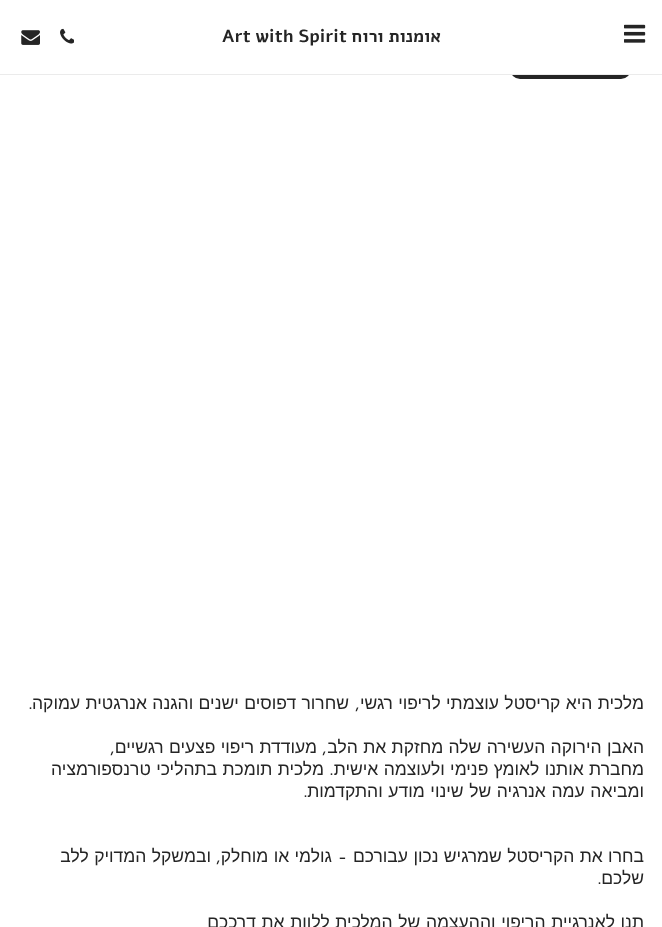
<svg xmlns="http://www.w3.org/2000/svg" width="662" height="927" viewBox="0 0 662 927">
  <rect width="100%" height="100%" fill="#fff"/>
  <rect x="510" y="41" width="121" height="38" rx="10" fill="#252525"/>
  <path d="M510 41h121v33H510z" fill="#fff"/>
  <path d="M0 74h662v1H0z" fill="#ebebeb"/>
  <image x="624" y="24" width="22" height="19" href="img/1.png"/>
  <image x="60" y="28" width="14" height="16" href="img/2.png"/>
  <image x="21" y="30" width="19" height="15" href="img/3.png"/>
  <text x="441" y="42" font-family="Alef" font-size="17.5" font-weight="bold" direction="rtl" fill="#252525">אומנות ורוח</text>
  <text x="222" y="42" font-family="Alef" font-size="17.5" font-weight="bold" fill="#252525">Art with Spirit</text>
  <text x="644" y="709" word-spacing="0.5" font-family="Liberation Sans" font-size="17.5" direction="rtl" fill="#252525">מלכית היא קריסטל עוצמתי לריפוי רגשי</text>
  <text x="359" y="709" font-family="Josefin Sans" font-size="17.5" direction="rtl" fill="#252525">,</text>
  <text x="349" y="709" word-spacing="0.5" font-family="Liberation Sans" font-size="17.5" direction="rtl" fill="#252525">שחרור דפוסים ישנים והגנה אנרגטית עמוקה</text>
  <text x="32" y="709" font-family="Josefin Sans" font-size="17.5" direction="rtl" fill="#252525">.</text>
  <text x="644" y="753" word-spacing="0.5" font-family="Liberation Sans" font-size="17.5" direction="rtl" fill="#252525">האבן הירוקה העשירה שלה מחזקת את הלב</text>
  <text x="326" y="753" font-family="Josefin Sans" font-size="17.5" direction="rtl" fill="#252525">,</text>
  <text x="317" y="753" word-spacing="0.5" font-family="Liberation Sans" font-size="17.5" direction="rtl" fill="#252525">מעודדת ריפוי פצעים רגשיים</text>
  <text x="114" y="753" font-family="Josefin Sans" font-size="17.5" direction="rtl" fill="#252525">,</text>
  <text x="644" y="775" word-spacing="0.5" font-family="Liberation Sans" font-size="17.5" direction="rtl" fill="#252525">מחברת אותנו לאומץ פנימי ולעוצמה אישית</text>
  <text x="333" y="775" font-family="Josefin Sans" font-size="17.5" direction="rtl" fill="#252525">.</text>
  <g font-family="Liberation Sans" font-size="17.5" direction="rtl" fill="#252525">
    <text x="324" y="775" word-spacing="0.5">מלכית תומכת בתהליכי טרנספורמציה</text>
    <text x="644" y="797" word-spacing="0.75">ומביאה עמה אנרגיה של שינוי מודע והתקדמות</text>
  </g>
  <text x="307" y="797" font-family="Josefin Sans" font-size="17.5" direction="rtl" fill="#252525">.</text>
  <text x="644" y="862" word-spacing="0.5" font-family="Liberation Sans" font-size="17.5" direction="rtl" fill="#252525">בחרו את הקריסטל שמרגיש נכון עבורכם</text>
  <text x="347" y="862" font-family="Josefin Sans" font-size="17.5" direction="rtl" fill="#252525">–</text>
  <g font-family="Liberation Sans" font-size="17.5" direction="rtl" fill="#252525">
    <text x="332" y="862" word-spacing="0.5">גולמי או מוחלק</text>
    <text x="211" y="862" word-spacing="0.5">ובמשקל המדויק ללב</text>
  </g>
  <text x="220" y="862" font-family="Josefin Sans" font-size="17.5" direction="rtl" fill="#252525">,</text>
  <text x="644" y="884" font-family="Liberation Sans" font-size="17.5" direction="rtl" fill="#252525">שלכם</text>
  <text x="601" y="884" font-family="Josefin Sans" font-size="17.5" direction="rtl" fill="#252525">.</text>
  <text x="644" y="928" word-spacing="0.75" font-family="Liberation Sans" font-size="17.5" direction="rtl" fill="#252525">תנו לאנרגיית הריפוי וההעצמה של המלכית ללוות את דרככם</text>
</svg>
